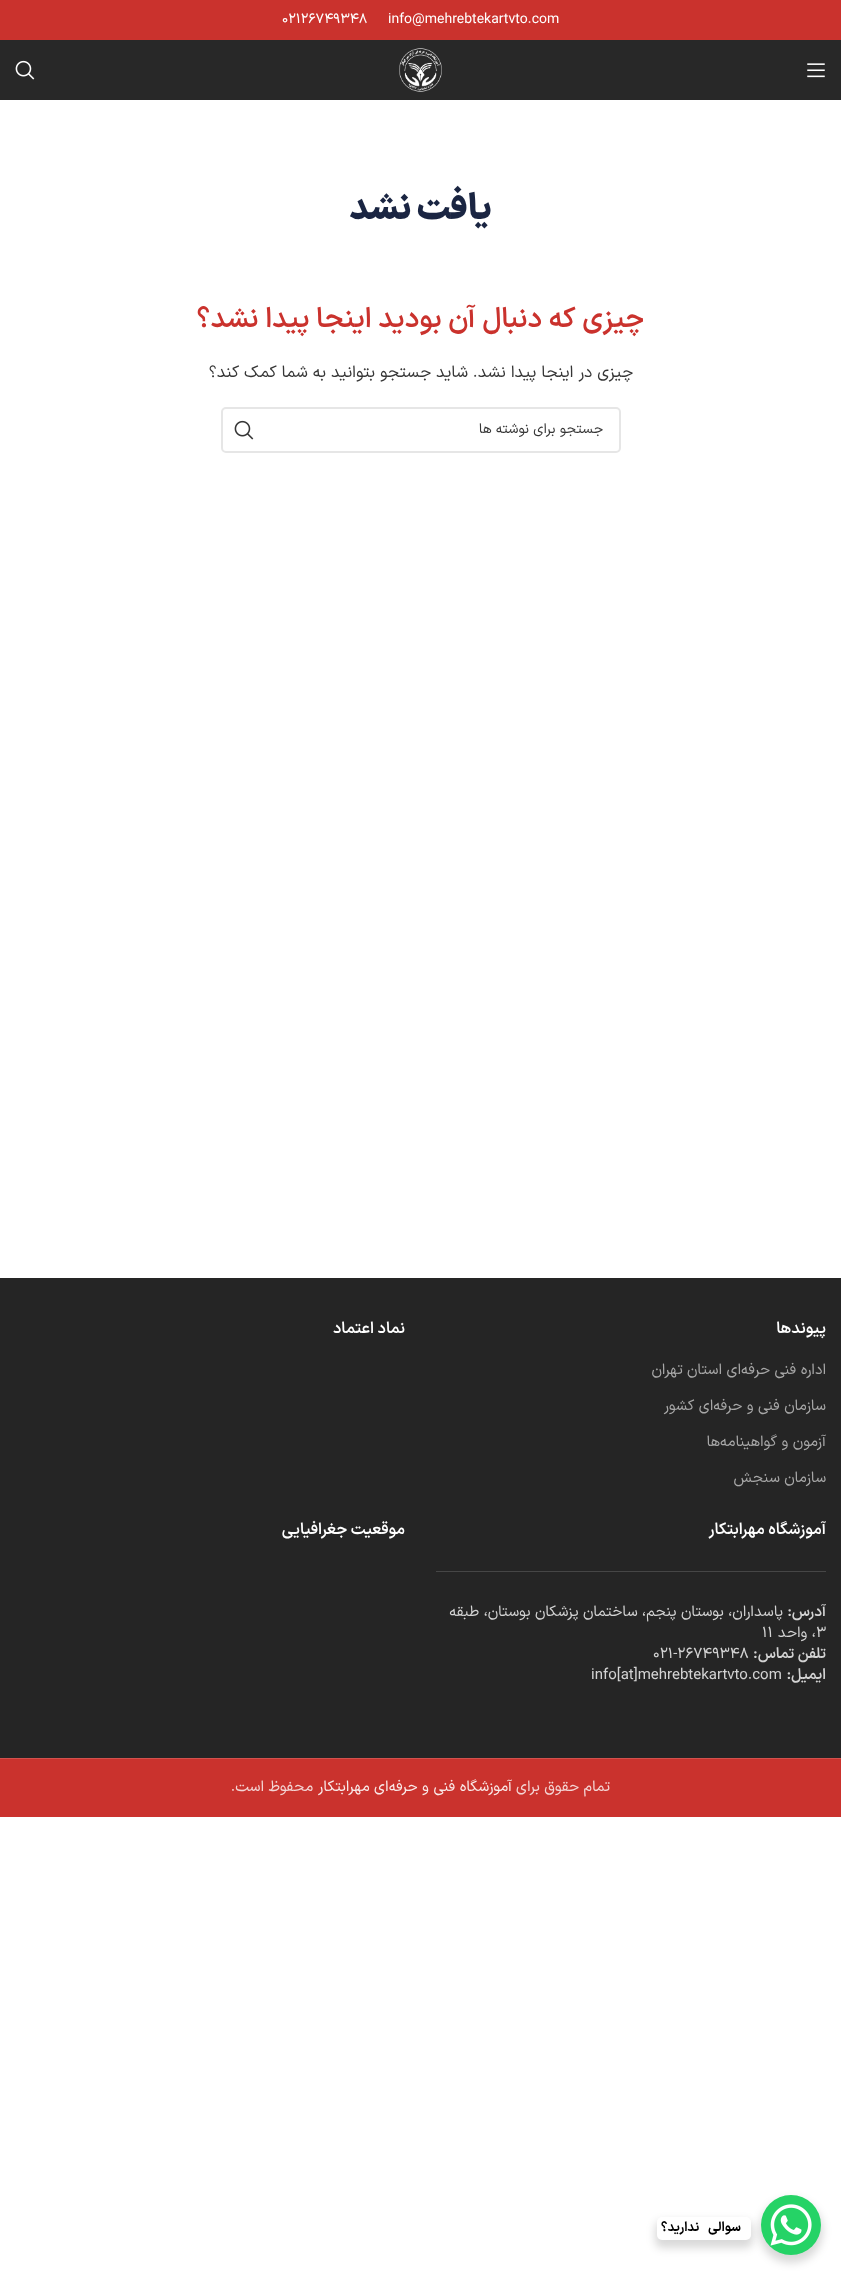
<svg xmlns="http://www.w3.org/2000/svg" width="841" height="2275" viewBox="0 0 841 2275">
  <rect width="100%" height="100%" fill="#fff"/>
  <path d="M0 0h841v40H0z" fill="#ca322d"/>
  <path d="M0 40h841v60H0z" fill="#282828"/>
  <image x="807" y="63" width="18" height="15" href="img/1.png"/>
  <image x="399" y="48" width="43" height="44" href="img/2.png"/>
  <image x="15" y="60" width="20" height="20" href="img/3.png"/>
  <rect x="222" y="408" width="398" height="44" rx="4" fill="none" stroke="#e6e6e6" stroke-width="2"/>
  <image x="234" y="420" width="20" height="20" href="img/4.png"/>
  <path d="M0 1278h841v480H0z" fill="#252525"/>
  <path d="M436 1571h390v1H436z" fill="#464646"/>
  <path d="M0 1759h841v58H0z" fill="#ca322d"/>
  <path d="M0 1758h841v1H0z" fill="#d2514d"/>
  <rect x="759" y="2199" width="64" height="64" rx="32" fill="#00000026" filter="blur(4px)"/>
  <circle cx="791" cy="2225" r="30" fill="#25d366"/>
  <image x="770" y="2204" width="42" height="42" href="img/5.png"/>
  <rect x="655" y="2221" width="98" height="27" rx="7" fill="#00000026" filter="blur(4px)"/>
  <rect x="657" y="2217" width="94" height="23" rx="5" fill="#fff"/>
  <g font-family="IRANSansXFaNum" font-size="14" fill="#fff">
    <text x="388" y="23">info@mehrebtekartvto.com</text>
    <text x="282" y="23">02126749348</text>
  </g>
  <text x="492" y="219" font-family="IRANSansXFaNum" font-size="35.5" font-weight="900" direction="rtl" fill="#1a2542">یافت نشد</text>
  <text x="644" y="327" font-family="IRANSansXFaNum" font-size="28" font-weight="600" direction="rtl" fill="#ca322d">چیزی که دنبال آن بودید اینجا پیدا نشد؟</text>
  <text x="633" y="377" font-family="IRANSansXFaNum" font-size="16.5" direction="rtl" fill="#363636">چیزی در اینجا پیدا نشد. شاید جستجو بتوانید به شما کمک کند؟</text>
  <text x="603" y="433" font-family="IRANSansXFaNum" font-size="14" direction="rtl" fill="#363636">جستجو برای نوشته ها</text>
  <text x="826" y="1333" font-family="IRANSansXFaNum" font-size="16" font-weight="600" direction="rtl" fill="#fff">پیوندها</text>
  <g font-family="IRANSansXFaNum" font-size="15" direction="rtl" fill="#a8a8a8">
    <text x="826" y="1374">اداره فنی حرفه‌ای استان تهران</text>
    <text x="826" y="1410">سازمان فنی و حرفه‌ای کشور</text>
    <text x="826" y="1446">آزمون و گواهینامه‌ها</text>
    <text x="826" y="1482">سازمان سنجش</text>
  </g>
  <g font-family="IRANSansXFaNum" font-size="16" font-weight="600" direction="rtl" fill="#fff">
    <text x="405" y="1333">نماد اعتماد</text>
    <text x="826" y="1534">آموزشگاه مهرابتکار</text>
  </g>
  <text x="826" y="1616" font-family="IRANSansXFaNum" font-size="15" font-weight="600" direction="rtl" fill="#d3d3d3">آدرس:</text>
  <text x="783" y="1616" font-family="IRANSansXFaNum" font-size="15" direction="rtl" fill="#d3d3d3">پاسداران، بوستان پنجم، ساختمان پزشکان بوستان، طبقه</text>
  <text x="816" y="1637" font-family="IRANSansXFaNum" font-size="15" fill="#d3d3d3">۳</text>
  <text x="816" y="1637" font-family="IRANSansXFaNum" font-size="15" direction="rtl" fill="#d3d3d3">، واحد</text>
  <text x="762" y="1637" font-family="IRANSansXFaNum" font-size="15" fill="#d3d3d3">۱۱</text>
  <text x="826" y="1658" font-family="IRANSansXFaNum" font-size="15" font-weight="600" direction="rtl" fill="#d3d3d3">تلفن تماس:</text>
  <text x="653" y="1658" font-family="IRANSansXFaNum" font-size="15" fill="#d3d3d3">021-26749348</text>
  <text x="826" y="1679" font-family="IRANSansXFaNum" font-size="15" font-weight="600" direction="rtl" fill="#d3d3d3">ایمیل:</text>
  <text x="591" y="1679" font-family="IRANSansXFaNum" font-size="15" fill="#d3d3d3">info[at]mehrebtekartvto.com</text>
  <text x="405" y="1534" font-family="IRANSansXFaNum" font-size="16" font-weight="600" direction="rtl" fill="#fff">موقعیت جغرافیایی</text>
  <text x="610" y="1791" font-family="IRANSansXFaNum" font-size="15" direction="rtl" fill="#f4d6d5">تمام حقوق برای</text>
  <text x="512" y="1791" font-family="IRANSansXFaNum" font-size="15" direction="rtl" fill="#faebea">آموزشگاه فنی و حرفه‌ای مهرابتکار</text>
  <text x="313" y="1791" font-family="IRANSansXFaNum" font-size="15" direction="rtl" fill="#f4d6d5">محفوظ است.</text>
  <text x="741" y="2231" word-spacing="6" font-family="IRANSansXFaNum" font-size="13" font-weight="bold" letter-spacing="-0.4" direction="rtl" fill="#000">سوالی ندارید؟</text>
</svg>
